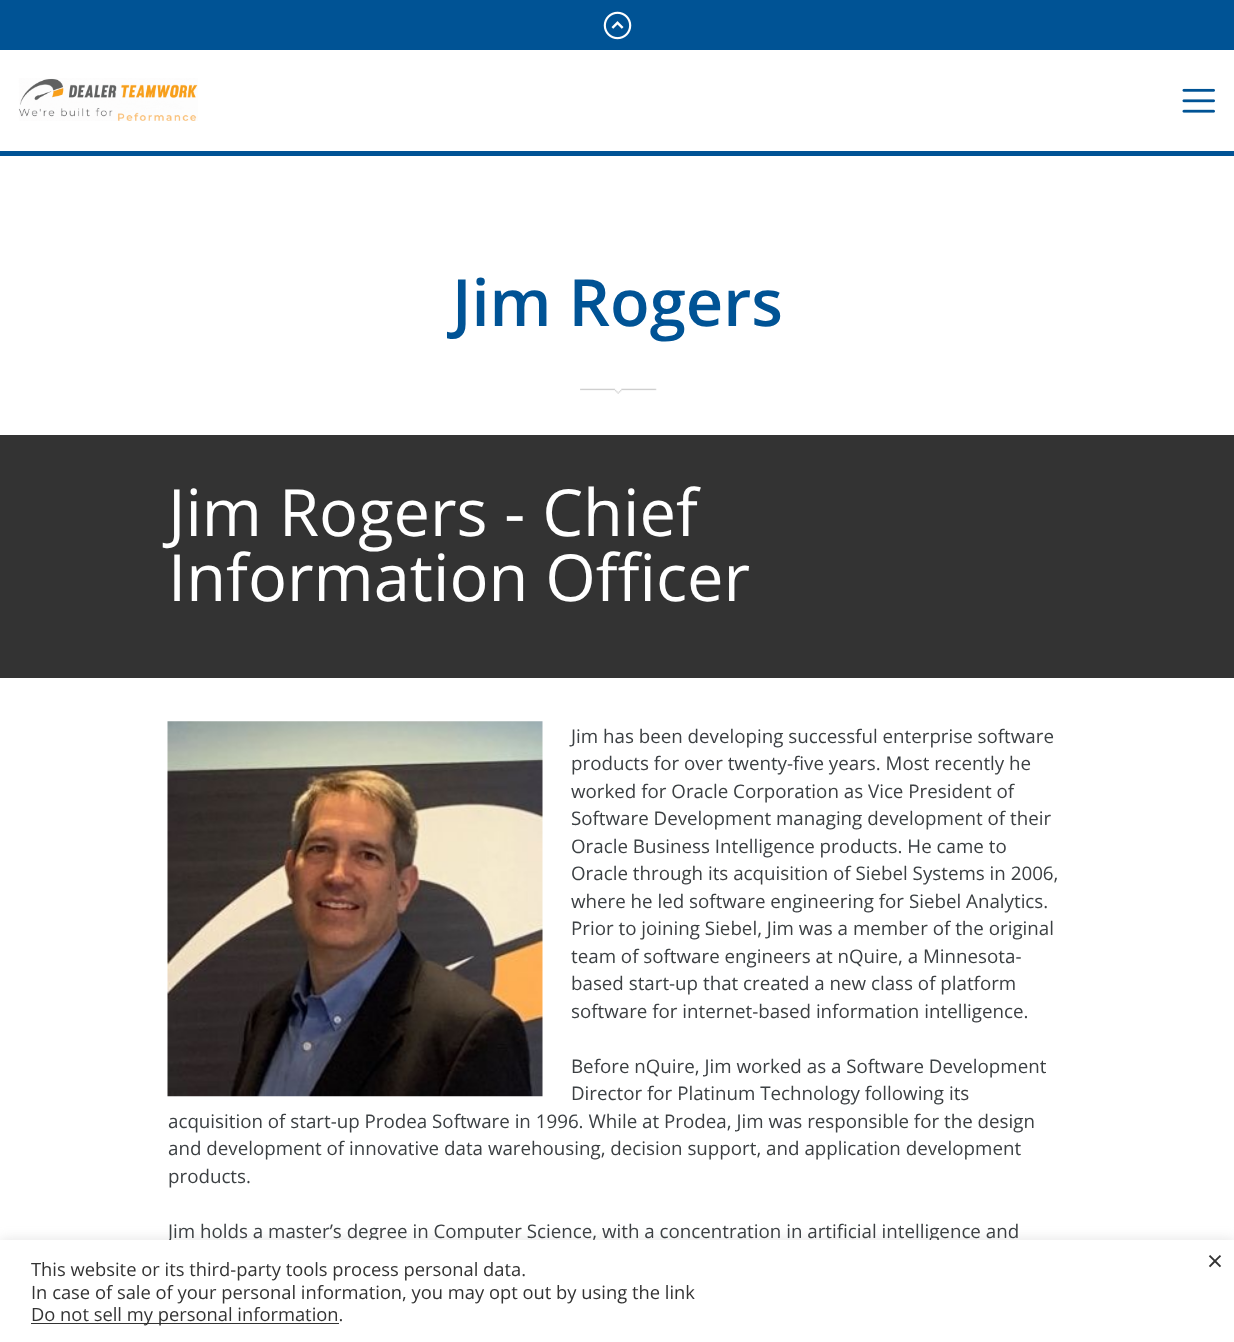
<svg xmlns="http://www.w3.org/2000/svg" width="1234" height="1342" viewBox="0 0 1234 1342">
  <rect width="100%" height="100%" fill="#fff"/>
  <path d="M0 151h1234v5H0z" fill="#005395"/>
  <path d="M0 0h1234v50H0z" fill="#005395"/>
  <image x="603" y="11" width="29" height="29" href="img/1.png"/>
  <image x="18" y="78" width="180" height="43" href="img/2.png"/>
  <image x="1182" y="88" width="33" height="25" href="img/3.png"/>
  <image x="580" y="388" width="77" height="6" href="img/4.png"/>
  <path d="M0 435h1234v243H0z" fill="#333"/>
  <image x="167" y="721" width="376" height="376" href="img/5.png"/>
  <path d="M0 1239h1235v102H0z" fill="#acabab4d" filter="blur(6px)"/>
  <text x="452" y="326" font-family="Open Sans" font-size="65" font-weight="600" fill="#005395">Jim Rogers</text>
  <g font-family="Open Sans" font-size="65" fill="#fff">
    <text x="168" y="536">Jim Rogers - Chief</text>
    <text x="168" y="601">Information Officer</text>
  </g>
  <g font-family="Open Sans" font-size="18.75" fill="#3c4043">
    <text x="571" y="743">Jim has been developing successful enterprise software</text>
    <text x="571" y="770">products for over twenty-five years. Most recently he</text>
    <text x="571" y="798">worked for Oracle Corporation as Vice President of</text>
    <text x="571" y="825">Software Development managing development of their</text>
    <text x="571" y="853">Oracle Business Intelligence products. He came to</text>
    <text x="571" y="880">Oracle through its acquisition of Siebel Systems in 2006,</text>
    <text x="571" y="908">where he led software engineering for Siebel Analytics.</text>
    <text x="571" y="935">Prior to joining Siebel, Jim was a member of the original</text>
    <text x="571" y="963">team of software engineers at nQuire, a Minnesota-</text>
    <text x="571" y="990">based start-up that created a new class of platform</text>
    <text x="571" y="1018">software for internet-based information intelligence.</text>
    <text x="571" y="1073">Before nQuire, Jim worked as a Software Development</text>
    <text x="571" y="1100">Director for Platinum Technology following its</text>
    <text x="168" y="1128">acquisition of start-up Prodea Software in 1996. While at Prodea, Jim was responsible for the design</text>
    <text x="168" y="1155">and development of innovative data warehousing, decision support, and application development</text>
    <text x="168" y="1183">products.</text>
    <text x="168" y="1238">Jim holds a master’s degree in Computer Science, with a concentration in artificial intelligence and</text>
  </g>
  <path d="M0 1240h1234v102H0z" fill="#fff"/>
  <g font-family="Open Sans" font-size="18.35" fill="#333">
    <text x="31" y="1276">This website or its third-party tools process personal data.</text>
    <text x="31" y="1299">In case of sale of your personal information, you may opt out by using the link</text>
  </g>
  <path d="M31 1323h308v1H31z" fill="#333"/>
  <text x="31" y="1321" font-family="Open Sans" font-size="18.35" fill="#333">Do not sell my personal information.</text>
  <text x="1207" y="1271" font-family="Open Sans" font-size="28" fill="#333">×</text>
</svg>
